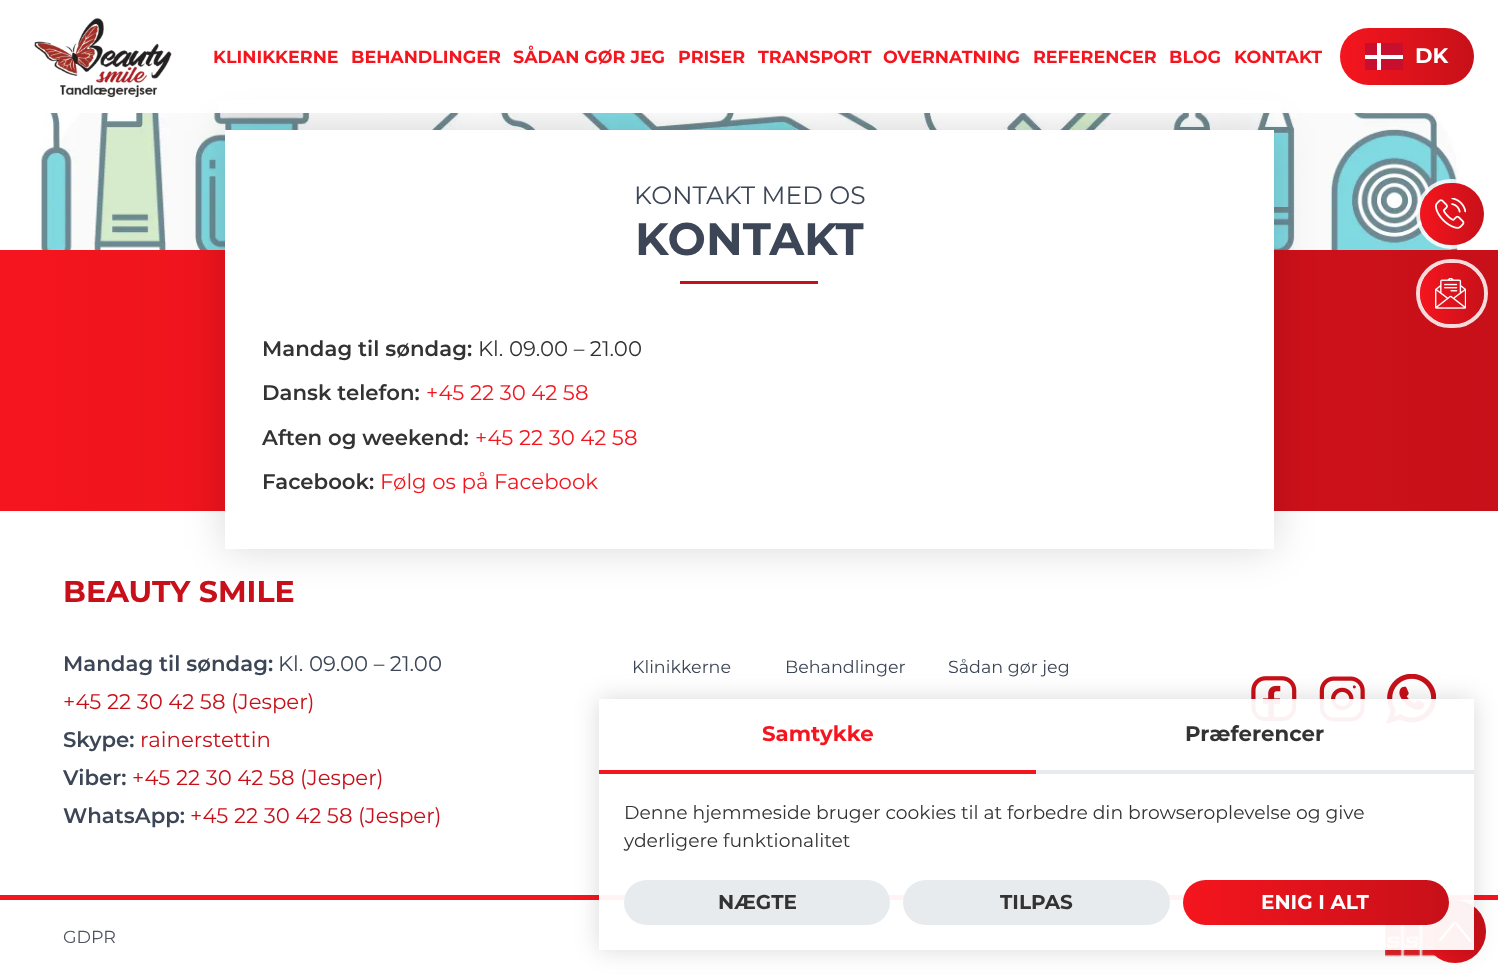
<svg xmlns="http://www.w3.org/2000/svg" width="1498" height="975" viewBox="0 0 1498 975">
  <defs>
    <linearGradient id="g1" gradientUnits="userSpaceOnUse" x1="0" y1="205" x2="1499" y2="205"><stop offset="0" stop-color="#f5151e"/><stop offset="1" stop-color="#c71019"/></linearGradient>
    <linearGradient id="g2" gradientUnits="userSpaceOnUse" x1="1340" y1="56" x2="1474" y2="56"><stop offset="0" stop-color="#f5151e"/><stop offset="1" stop-color="#c71019"/></linearGradient>
    <linearGradient id="g3" gradientUnits="userSpaceOnUse" x1="1420" y1="214" x2="1484" y2="214"><stop offset="0" stop-color="#f5151e"/><stop offset="1" stop-color="#c71019"/></linearGradient>
    <linearGradient id="g4" gradientUnits="userSpaceOnUse" x1="1420" y1="293" x2="1484" y2="293"><stop offset="0" stop-color="#f5151e"/><stop offset="1" stop-color="#c71019"/></linearGradient>
    <linearGradient id="g5" gradientUnits="userSpaceOnUse" x1="1424" y1="931" x2="1486" y2="931"><stop offset="0" stop-color="#f5151e"/><stop offset="1" stop-color="#c71019"/></linearGradient>
    <clipPath id="clip1"><path d="M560 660H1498V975H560ZM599 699H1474V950H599Z" clip-rule="evenodd"/></clipPath>
    <linearGradient id="g6" gradientUnits="userSpaceOnUse" x1="1183" y1="903" x2="1449" y2="903"><stop offset="0" stop-color="#f5151e"/><stop offset="1" stop-color="#c71019"/></linearGradient>
  </defs>
  <rect width="100%" height="100%" fill="#fff"/>
  <path d="M0 250h1498v261H0z" fill="url(#g1)"/>
  <image x="0" y="113" width="1460" height="137" href="img/4.png"/>
  <path d="M225 130h1049v419H225z" fill="#03050526" filter="blur(20px)"/>
  <path d="M218 100h1063v13H218z" fill="#fff"/>
  <image x="34" y="18" width="138" height="80" href="img/1.png"/>
  <rect x="1340" y="28" width="134" height="57" rx="28.5" fill="url(#g2)"/>
  <path d="M1365 43h38v27H1365z" fill="#c8102e"/>
  <path d="M1377 43h4v27H1377z" fill="#fff"/>
  <path d="M1365 55h38v4H1365z" fill="#fff"/>
  <rect x="1418" y="181" width="68" height="66" rx="33" fill="none" stroke="#ffffffd9" stroke-width="4"/>
  <rect x="1420" y="183" width="64" height="62" rx="31" fill="url(#g3)"/>
  <image x="1435" y="198" width="31" height="31" href="img/2.png"/>
  <rect x="1418" y="261" width="68" height="65" rx="32.5" fill="none" stroke="#ffffffd9" stroke-width="4"/>
  <rect x="1420" y="263" width="64" height="61" rx="30.5" fill="url(#g4)"/>
  <image x="1435" y="278" width="31" height="31" href="img/3.png"/>
  <path d="M225 130h1049v419H225z" fill="#fff"/>
  <path d="M680 281h138v3H680z" fill="#c71019"/>
  <image x="1251" y="676" width="46" height="46" href="img/5.png"/>
  <image x="1319" y="676" width="46" height="46" href="img/6.png"/>
  <image x="1386" y="674" width="50" height="50" href="img/7.png"/>
  <path d="M0 895h1498v5H0z" fill="#f5151e"/>
  <image x="1385" y="925" width="52" height="32" href="img/8.png"/>
  <rect x="1424" y="900" width="62" height="63" rx="31" fill="url(#g5)"/>
  <image x="1439" y="921" width="32" height="21" href="img/9.png"/>
  <g clip-path="url(#clip1)">
    <path d="M599 699h875v251H599z" fill="#00000026" filter="blur(12.5px)"/>
  </g>
  <path d="M599 699h875v251H599z" fill="#fffffff2"/>
  <path d="M599 770h437v4H599z" fill="#f5151e"/>
  <path d="M1036 770h438v4H1036z" fill="#e7ebee"/>
  <rect x="624" y="880" width="266" height="45" rx="22.5" fill="#e7ebee"/>
  <rect x="903" y="880" width="267" height="45" rx="22.5" fill="#e7ebee"/>
  <rect x="1183" y="880" width="266" height="45" rx="22.5" fill="url(#g6)"/>
  <g font-family="Montserrat" font-size="17.5" font-weight="bold" fill="#f5151e">
    <text x="213" y="63">KLINIKKERNE</text>
    <text x="351" y="63">BEHANDLINGER</text>
    <text x="513" y="63">SÅDAN GØR JEG</text>
    <text x="678" y="63">PRISER</text>
    <text x="758" y="63">TRANSPORT</text>
    <text x="883" y="63">OVERNATNING</text>
    <text x="1033" y="63">REFERENCER</text>
    <text x="1169" y="63">BLOG</text>
    <text x="1234" y="63">KONTAKT</text>
  </g>
  <text x="1415" y="63" font-family="Montserrat" font-size="21.25" font-weight="bold" fill="#fff">DK</text>
  <text x="634" y="204" font-family="Montserrat" font-size="25" fill="#3c4656">KONTAKT MED OS</text>
  <text x="635" y="255" font-family="Montserrat" font-size="45.5" font-weight="bold" fill="#3c4656">KONTAKT</text>
  <text x="262" y="356" font-family="Montserrat" font-size="21.25" font-weight="600" fill="#333">Mandag til søndag:</text>
  <text x="478" y="356" font-family="Montserrat" font-size="21.25" fill="#333">Kl. 09.00 – 21.00</text>
  <text x="262" y="400" font-family="Montserrat" font-size="21.25" font-weight="600" fill="#333">Dansk telefon:</text>
  <text x="426" y="400" font-family="Montserrat" font-size="21.25" fill="#f5151e">+45 22 30 42 58</text>
  <text x="262" y="445" font-family="Montserrat" font-size="21.25" font-weight="600" fill="#333">Aften og weekend:</text>
  <text x="475" y="445" font-family="Montserrat" font-size="21.25" fill="#f5151e">+45 22 30 42 58</text>
  <text x="262" y="489" font-family="Montserrat" font-size="21.25" font-weight="600" fill="#333">Facebook:</text>
  <text x="380" y="489" font-family="Montserrat" font-size="21.25" fill="#f5151e">Følg os på Facebook</text>
  <text x="63" y="602" font-family="Montserrat" font-size="30" font-weight="bold" fill="#c71019">BEAUTY SMILE</text>
  <text x="63" y="671" font-family="Montserrat" font-size="21.25" font-weight="600" fill="#3c4656">Mandag til søndag:</text>
  <text x="278" y="671" font-family="Montserrat" font-size="21.25" fill="#3c4656">Kl. 09.00 – 21.00</text>
  <text x="63" y="709" font-family="Montserrat" font-size="21.25" fill="#c71019">+45 22 30 42 58 (Jesper)</text>
  <text x="63" y="747" font-family="Montserrat" font-size="21.25" font-weight="600" fill="#3c4656">Skype:</text>
  <text x="140" y="747" font-family="Montserrat" font-size="21.25" fill="#c71019">rainerstettin</text>
  <text x="63" y="785" font-family="Montserrat" font-size="21.25" font-weight="600" fill="#3c4656">Viber:</text>
  <text x="132" y="785" font-family="Montserrat" font-size="21.25" fill="#c71019">+45 22 30 42 58 (Jesper)</text>
  <text x="63" y="823" font-family="Montserrat" font-size="21.25" font-weight="600" fill="#3c4656">WhatsApp:</text>
  <text x="190" y="823" font-family="Montserrat" font-size="21.25" fill="#c71019">+45 22 30 42 58 (Jesper)</text>
  <g font-family="Montserrat" font-size="17.5" fill="#3c4656">
    <text x="632" y="673">Klinikkerne</text>
    <text x="785" y="673">Behandlinger</text>
    <text x="948" y="673">Sådan gør jeg</text>
  </g>
  <text x="63" y="943" font-family="Montserrat" font-size="17.5" fill="#4e5360">GDPR</text>
  <text x="762" y="741" font-family="Montserrat" font-size="21.25" font-weight="bold" fill="#f5151e">Samtykke</text>
  <text x="1185" y="741" font-family="Montserrat" font-size="21.25" font-weight="bold" fill="#333">Præferencer</text>
  <g font-family="Montserrat" font-size="18.75" fill="#333">
    <text x="624" y="819">Denne hjemmeside bruger cookies til at forbedre din browseroplevelse og give</text>
    <text x="624" y="847">yderligere funktionalitet</text>
  </g>
  <g font-family="Montserrat" font-size="20" font-weight="bold" fill="#333">
    <text x="718" y="909">NÆGTE</text>
    <text x="1000" y="909">TILPAS</text>
  </g>
  <text x="1261" y="909" font-family="Montserrat" font-size="20" font-weight="bold" fill="#fff">ENIG I ALT</text>
</svg>
